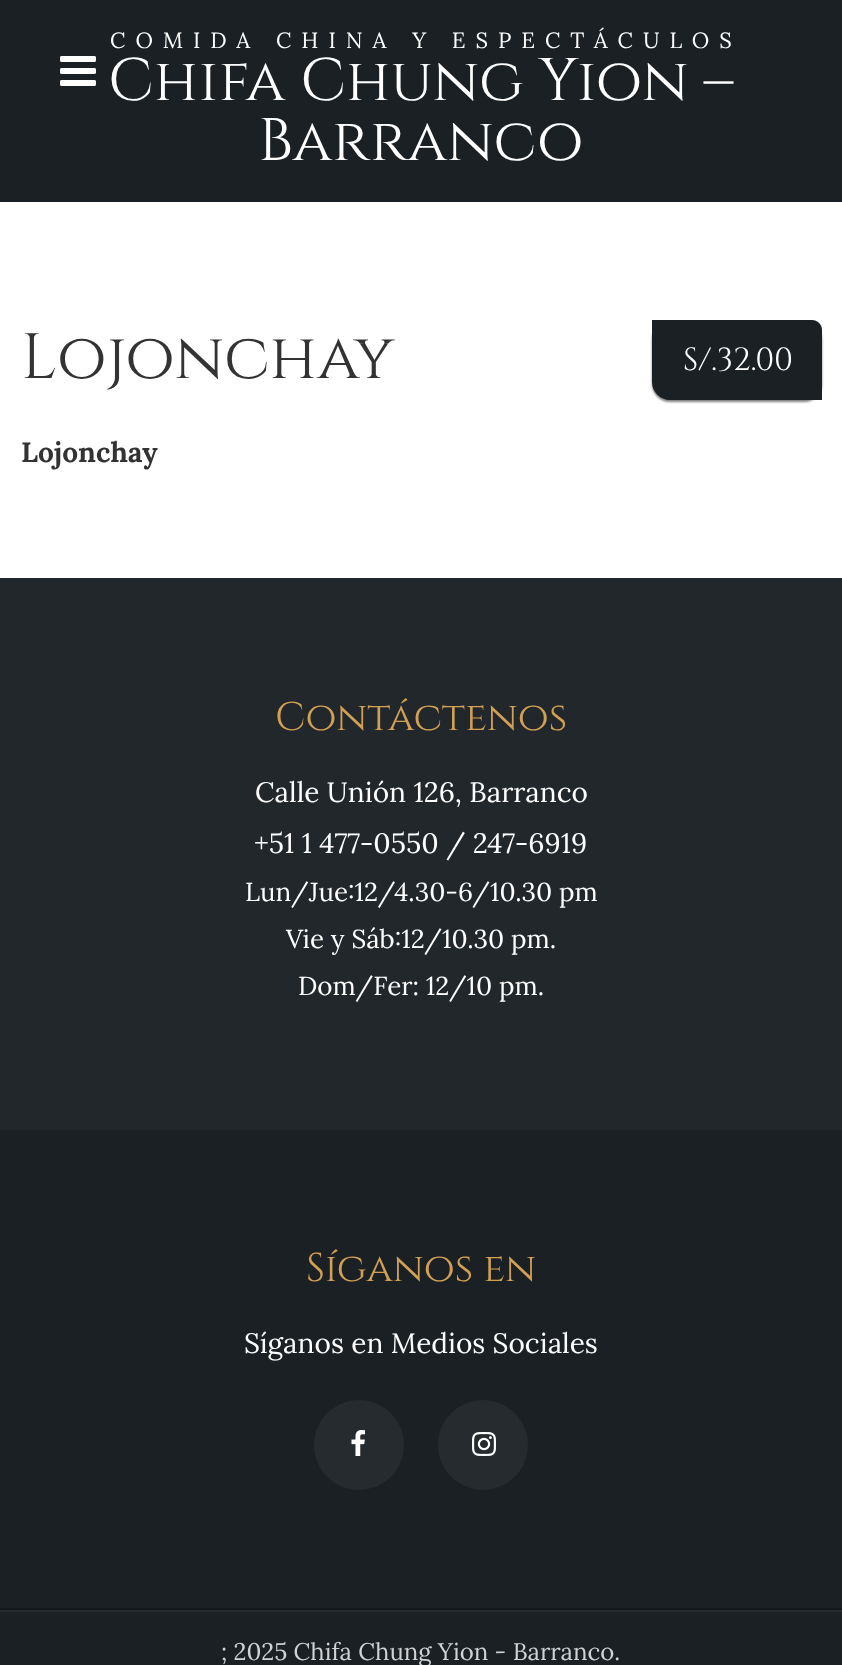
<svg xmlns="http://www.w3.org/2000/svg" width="842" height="1665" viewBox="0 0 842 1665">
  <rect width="100%" height="100%" fill="#1b2024"/>
  <image x="60" y="56" width="36" height="30" href="img/1.png"/>
  <path d="M0 202h842v376H0z" fill="#fff"/>
  <rect x="652" y="322" width="170" height="80" rx="18" fill="#00000080" filter="blur(1px)"/>
  <path d="M652 320H812C817.5 320 822 324.5 822 330V400H670C660 400 652 392 652 382Z" fill="#1b2024"/>
  <path d="M0 578h842v552H0z" fill="#22272b"/>
  <circle cx="359" cy="1445" r="45" fill="#262b2f"/>
  <image x="351" y="1430" width="14" height="26" href="img/2.png"/>
  <circle cx="483" cy="1445" r="45" fill="#262b2f"/>
  <image x="472" y="1432" width="24" height="24" href="img/3.png"/>
  <path d="M0 1608h842v2H0z" fill="#14181b"/>
  <path d="M0 1610h842v2H0z" fill="#262b2f"/>
  <text x="110" y="48" font-family="Lora" font-size="22" letter-spacing="10" fill="#fff">COMIDA CHINA Y ESPECTÁCULOS</text>
  <g font-family="Cinzel" font-size="60" fill="#fff">
    <text x="108" y="100">Chifa Chung Yion –</text>
    <text x="258" y="160">Barranco</text>
  </g>
  <text x="21" y="378" font-family="Cinzel" font-size="64" fill="#333">Lojonchay</text>
  <text x="683" y="370" font-family="Cinzel" font-size="32" fill="#fff">S/.32.00</text>
  <text x="21" y="462" font-family="Lora" font-size="28" font-weight="bold" fill="#333">Lojonchay</text>
  <text x="275" y="730" font-family="Cinzel" font-size="40" fill="#d1a054">Contáctenos</text>
  <g font-family="Lora" font-size="28" fill="#fff">
    <text x="255" y="802">Calle Unión 126, Barranco</text>
    <text x="254" y="853">+51 1 477-0550 / 247-6919</text>
  </g>
  <g font-family="Lora" font-size="26" fill="#fff">
    <text x="245" y="901">Lun/Jue:12/4.30-6/10.30 pm</text>
    <text x="286" y="948">Vie y Sáb:12/10.30 pm.</text>
    <text x="298" y="995">Dom/Fer: 12/10 pm.</text>
  </g>
  <text x="306" y="1281" font-family="Cinzel" font-size="40" fill="#d1a054">Síganos en</text>
  <text x="244" y="1353" font-family="Lora" font-size="28" fill="#fff">Síganos en Medios Sociales</text>
  <text x="221" y="1660" font-family="Lora" font-size="24" fill="#d1d2d3">; 2025 Chifa Chung Yion - Barranco.</text>
</svg>
